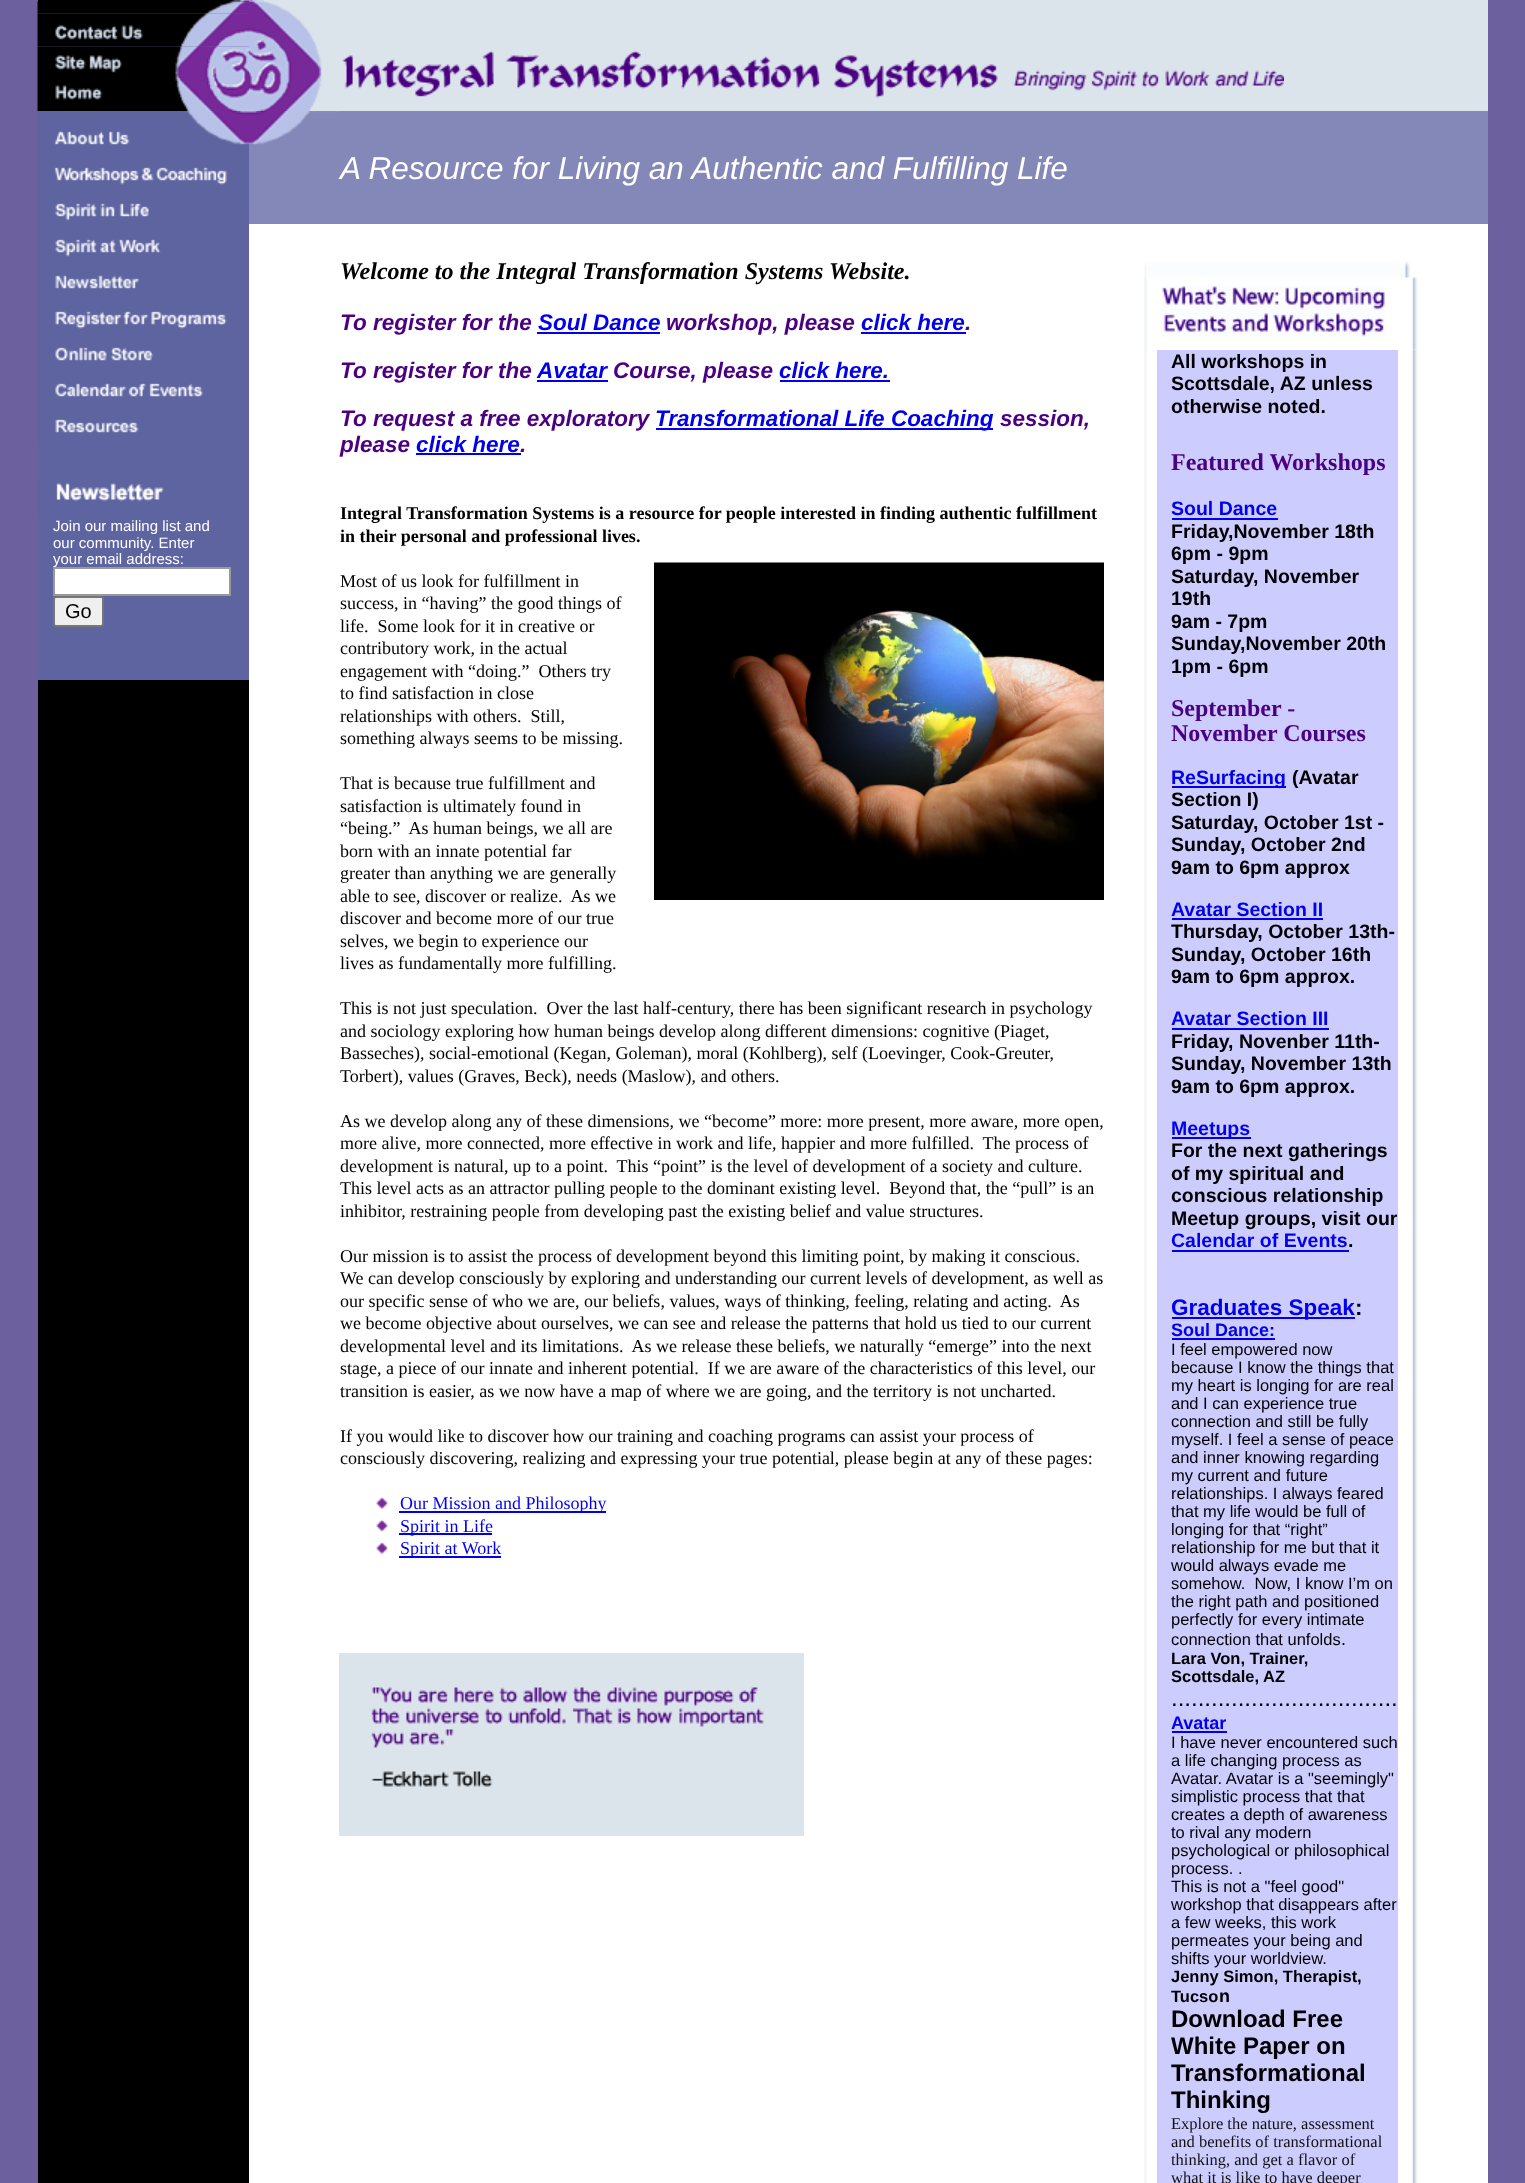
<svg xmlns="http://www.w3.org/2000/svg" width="1525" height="2183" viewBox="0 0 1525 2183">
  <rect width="100%" height="100%" fill="#6c609e"/>
  <path d="M38 0h211v2H38z" fill="#000"/>
  <image x="232" y="0" width="17" height="2" href="img/1.png"/>
  <path d="M249 0h1239v2H249z" fill="#dbe4eb"/>
  <image x="249" y="0" width="15" height="2" href="img/2.png"/>
  <image x="37" y="1" width="212" height="13" href="img/3.png"/>
  <image x="37" y="13" width="212" height="34" href="img/4.png"/>
  <image x="37" y="46" width="212" height="32" href="img/5.png"/>
  <image x="37" y="78" width="212" height="33" href="img/6.png"/>
  <path d="M322 2h1166v109H322z" fill="#dbe4eb"/>
  <image x="249" y="1" width="73" height="110" href="img/7.png"/>
  <image x="342" y="50" width="942" height="48" href="img/8.png"/>
  <path d="M249 145h90v79H249z" fill="#8388b9"/>
  <image x="249" y="111" width="90" height="34" href="img/9.png"/>
  <path d="M339 111h1149v113H339z" fill="#8388b9"/>
  <path d="M38 680h211v1503H38z" fill="#000"/>
  <image x="37" y="111" width="212" height="12" href="img/10.png"/>
  <path d="M224 159h25v288H224z" fill="#5e64a0"/>
  <image x="37" y="123" width="212" height="36" href="img/11.png"/>
  <image x="37" y="159" width="190" height="36" href="img/12.png"/>
  <image x="37" y="195" width="187" height="36" href="img/13.png"/>
  <image x="37" y="231" width="187" height="36" href="img/14.png"/>
  <image x="37" y="267" width="187" height="36" href="img/15.png"/>
  <image x="37" y="303" width="190" height="36" href="img/16.png"/>
  <image x="37" y="339" width="187" height="36" href="img/17.png"/>
  <image x="37" y="375" width="187" height="36" href="img/18.png"/>
  <image x="37" y="411" width="187" height="36" href="img/19.png"/>
  <path d="M38 447h211v233H38z" fill="#5e64a0"/>
  <image x="37" y="477" width="127" height="41" href="img/20.png"/>
  <path d="M54 568h176v27H54z" fill="#fff" stroke="#999" stroke-width="2"/>
  <rect x="54" y="597" width="49" height="29" rx="2" fill="#efefef" stroke="#767676" stroke-width="2"/>
  <path d="M249 224h1239v34H249z" fill="#fff"/>
  <path d="M249 258h1239v1925H249z" fill="#fff"/>
  <path d="M537 332h123v2H537z" fill="#00e"/>
  <path d="M861 332h105v2H861z" fill="#00e"/>
  <path d="M537 380h71v2H537z" fill="#00e"/>
  <path d="M780 380h110v2H780z" fill="#00e"/>
  <path d="M656 428h337v2H656z" fill="#00e"/>
  <path d="M416 453h105v2H416z" fill="#00e"/>
  <image x="654" y="562" width="450" height="338" href="img/21.png"/>
  <image x="376" y="1496" width="12" height="13" href="img/22.png"/>
  <path d="M399 1511h207v2H399z" fill="#00e"/>
  <image x="376" y="1519" width="12" height="13" href="img/23.png"/>
  <path d="M399 1533h93v2H399z" fill="#00e"/>
  <image x="376" y="1541" width="12" height="13" href="img/22.png"/>
  <path d="M399 1556h102v2H399z" fill="#00e"/>
  <image x="339" y="1653" width="465" height="183" href="img/24.png"/>
  <path d="M1144 277h3v73H1144z" fill="#f3f6f8"/>
  <image x="1411" y="277" width="7" height="73" href="img/27.png"/>
  <image x="1144" y="261" width="273" height="17" href="img/25.png"/>
  <image x="1162" y="286" width="223" height="51" href="img/26.png"/>
  <path d="M1144 349h3v1834H1144z" fill="#f4f6f9"/>
  <path d="M1157 350h241v1833H1157z" fill="#ccf"/>
  <path d="M1172 518h106v2H1172z" fill="#00e"/>
  <path d="M1172 786h114v2H1172z" fill="#00e"/>
  <path d="M1172 918h151v2H1172z" fill="#00e"/>
  <path d="M1172 1028h157v2H1172z" fill="#00e"/>
  <path d="M1172 1137h79v2H1172z" fill="#00e"/>
  <path d="M1172 1250h177v2H1172z" fill="#00e"/>
  <path d="M1172 1317h183v2H1172z" fill="#00e"/>
  <path d="M1172 1338h103v2H1172z" fill="#00e"/>
  <path d="M1172 1731h55v2H1172z" fill="#00e"/>
  <image x="1412" y="349" width="6" height="1834" href="img/28.png"/>
  <text x="340" y="179" font-family="Liberation Sans" font-size="31.5" font-style="italic" fill="#fff">A Resource for Living an Authentic and Fulfilling Life</text>
  <g font-family="Liberation Sans" font-size="15" fill="#fff">
    <text x="53" y="531">Join our mailing list and</text>
    <text x="53" y="548">our community. Enter</text>
    <text x="53" y="564">your email address:</text>
  </g>
  <text x="65" y="618" font-family="Liberation Sans" font-size="20" fill="#000">Go</text>
  <text x="340" y="279" font-family="Liberation Serif" font-size="24" font-weight="bold" font-style="italic" fill="#000">Welcome to the Integral Transformation Systems Website.</text>
  <text x="340" y="330" font-family="Liberation Sans" font-size="22.5" font-weight="bold" font-style="italic" fill="#4b0081">To register for the</text>
  <text x="538" y="330" font-family="Liberation Sans" font-size="22.5" font-weight="bold" font-style="italic" fill="#00e">Soul Dance</text>
  <text x="666" y="330" font-family="Liberation Sans" font-size="22.5" font-weight="bold" font-style="italic" fill="#4b0081">workshop, please</text>
  <text x="861" y="330" font-family="Liberation Sans" font-size="22.5" font-weight="bold" font-style="italic" fill="#00e">click here</text>
  <g font-family="Liberation Sans" font-size="22.5" font-weight="bold" font-style="italic" fill="#4b0081">
    <text x="965" y="330">.</text>
    <text x="340" y="378">To register for the</text>
  </g>
  <text x="537" y="378" font-family="Liberation Sans" font-size="22.5" font-weight="bold" font-style="italic" fill="#00e">Avatar</text>
  <text x="613" y="378" font-family="Liberation Sans" font-size="22.5" font-weight="bold" font-style="italic" fill="#4b0081">Course, please</text>
  <text x="779" y="378" font-family="Liberation Sans" font-size="22.5" font-weight="bold" font-style="italic" fill="#00e">click here.</text>
  <text x="340" y="426" font-family="Liberation Sans" font-size="22.5" font-weight="bold" font-style="italic" fill="#4b0081">To request a free exploratory</text>
  <text x="655" y="426" font-family="Liberation Sans" font-size="22.5" font-weight="bold" font-style="italic" fill="#00e">Transformational Life Coaching</text>
  <g font-family="Liberation Sans" font-size="22.5" font-weight="bold" font-style="italic" fill="#4b0081">
    <text x="1000" y="426">session,</text>
    <text x="340" y="452">please</text>
  </g>
  <text x="416" y="452" font-family="Liberation Sans" font-size="22.5" font-weight="bold" font-style="italic" fill="#00e">click here</text>
  <text x="520" y="452" font-family="Liberation Sans" font-size="22.5" font-weight="bold" font-style="italic" fill="#4b0081">.</text>
  <g font-family="Liberation Serif" font-size="18" font-weight="bold" fill="#000">
    <text x="340" y="519">Integral Transformation Systems is a resource for people interested in finding authentic fulfillment</text>
    <text x="340" y="542">in their personal and professional lives.</text>
  </g>
  <g font-family="Liberation Serif" font-size="18" fill="#000">
    <text x="340" y="587">Most of us look for fulfillment in</text>
    <text x="340" y="609">success, in “having” the good things of</text>
    <text x="340" y="632" xml:space="preserve">life.  Some look for it in creative or</text>
    <text x="340" y="654">contributory work, in the actual</text>
    <text x="340" y="677" xml:space="preserve">engagement with “doing.”  Others try</text>
    <text x="340" y="699">to find satisfaction in close</text>
    <text x="340" y="722" xml:space="preserve">relationships with others.  Still,</text>
    <text x="340" y="744">something always seems to be missing.</text>
    <text x="340" y="789">That is because true fulfillment and</text>
    <text x="340" y="812">satisfaction is ultimately found in</text>
    <text x="340" y="834" xml:space="preserve">“being.”  As human beings, we all are</text>
    <text x="340" y="857">born with an innate potential far</text>
    <text x="340" y="879">greater than anything we are generally</text>
    <text x="340" y="902" xml:space="preserve">able to see, discover or realize.  As we</text>
    <text x="340" y="924">discover and become more of our true</text>
    <text x="340" y="947">selves, we begin to experience our</text>
    <text x="340" y="969">lives as fundamentally more fulfilling.</text>
    <text x="340" y="1014" xml:space="preserve">This is not just speculation.  Over the last half-century, there has been significant research in psychology</text>
    <text x="340" y="1037">and sociology exploring how human beings develop along different dimensions: cognitive (Piaget,</text>
    <text x="340" y="1059">Basseches), social-emotional (Kegan, Goleman), moral (Kohlberg), self (Loevinger, Cook-Greuter,</text>
    <text x="340" y="1082">Torbert), values (Graves, Beck), needs (Maslow), and others.</text>
    <text x="340" y="1127">As we develop along any of these dimensions, we “become” more: more present, more aware, more open,</text>
    <text x="340" y="1149" xml:space="preserve">more alive, more connected, more effective in work and life, happier and more fulfilled.  The process of</text>
    <text x="340" y="1172" xml:space="preserve">development is natural, up to a point.  This “point” is the level of development of a society and culture.</text>
    <text x="340" y="1194" xml:space="preserve">This level acts as an attractor pulling people to the dominant existing level.  Beyond that, the “pull” is an</text>
    <text x="340" y="1217">inhibitor, restraining people from developing past the existing belief and value structures.</text>
    <text x="340" y="1262">Our mission is to assist the process of development beyond this limiting point, by making it conscious.</text>
    <text x="340" y="1284">We can develop consciously by exploring and understanding our current levels of development, as well as</text>
    <text x="340" y="1307" xml:space="preserve">our specific sense of who we are, our beliefs, values, ways of thinking, feeling, relating and acting.  As</text>
    <text x="340" y="1329">we become objective about ourselves, we can see and release the patterns that hold us tied to our current</text>
    <text x="340" y="1352" xml:space="preserve">developmental level and its limitations.  As we release these beliefs, we naturally “emerge” into the next</text>
    <text x="340" y="1374" xml:space="preserve">stage, a piece of our innate and inherent potential.  If we are aware of the characteristics of this level, our</text>
    <text x="340" y="1397">transition is easier, as we now have a map of where we are going, and the territory is not uncharted.</text>
    <text x="340" y="1442">If you would like to discover how our training and coaching programs can assist your process of</text>
    <text x="340" y="1464">consciously discovering, realizing and expressing your true potential, please begin at any of these pages:</text>
  </g>
  <g font-family="Liberation Serif" font-size="18" fill="#00e">
    <text x="400" y="1509">Our Mission and Philosophy</text>
    <text x="400" y="1532">Spirit in Life</text>
    <text x="400" y="1554">Spirit at Work</text>
  </g>
  <g font-family="Liberation Sans" font-size="19.5" font-weight="bold" fill="#000">
    <text x="1171" y="368">All workshops in</text>
    <text x="1171" y="390">Scottsdale, AZ unless</text>
    <text x="1171" y="413">otherwise noted.</text>
  </g>
  <text x="1171" y="470" font-family="Liberation Serif" font-size="24" font-weight="bold" fill="#4b0081">Featured Workshops</text>
  <text x="1171" y="515" font-family="Liberation Sans" font-size="19.5" font-weight="bold" fill="#00e">Soul Dance</text>
  <g font-family="Liberation Sans" font-size="19.5" font-weight="bold" fill="#000">
    <text x="1171" y="538">Friday,November 18th</text>
    <text x="1171" y="560">6pm - 9pm</text>
    <text x="1171" y="583">Saturday, November</text>
    <text x="1171" y="605">19th</text>
    <text x="1171" y="628">9am - 7pm</text>
    <text x="1171" y="650">Sunday,November 20th</text>
    <text x="1171" y="673">1pm - 6pm</text>
  </g>
  <g font-family="Liberation Serif" font-size="24" font-weight="bold" fill="#4b0081">
    <text x="1171" y="716">September -</text>
    <text x="1171" y="741">November Courses</text>
  </g>
  <text x="1171" y="784" font-family="Liberation Sans" font-size="19.5" font-weight="bold" fill="#00e">ReSurfacing</text>
  <g font-family="Liberation Sans" font-size="19.5" font-weight="bold" fill="#000">
    <text x="1292" y="784">(Avatar</text>
    <text x="1171" y="806">Section I)</text>
    <text x="1171" y="829">Saturday, October 1st -</text>
    <text x="1171" y="851">Sunday, October 2nd</text>
    <text x="1171" y="874">9am to 6pm approx</text>
  </g>
  <text x="1171" y="916" font-family="Liberation Sans" font-size="19.5" font-weight="bold" fill="#00e">Avatar Section II</text>
  <g font-family="Liberation Sans" font-size="19.5" font-weight="bold" fill="#000">
    <text x="1171" y="938">Thursday, October 13th-</text>
    <text x="1171" y="961">Sunday, October 16th</text>
    <text x="1171" y="983">9am to 6pm approx.</text>
  </g>
  <text x="1171" y="1025" font-family="Liberation Sans" font-size="19.5" font-weight="bold" fill="#00e">Avatar Section III</text>
  <g font-family="Liberation Sans" font-size="19.5" font-weight="bold" fill="#000">
    <text x="1171" y="1048">Friday, Novenber 11th-</text>
    <text x="1171" y="1070">Sunday, November 13th</text>
    <text x="1171" y="1093">9am to 6pm approx.</text>
  </g>
  <text x="1171" y="1135" font-family="Liberation Sans" font-size="19.5" font-weight="bold" fill="#00e">Meetups</text>
  <g font-family="Liberation Sans" font-size="19.5" font-weight="bold" fill="#000">
    <text x="1171" y="1157">For the next gatherings</text>
    <text x="1171" y="1180">of my spiritual and</text>
    <text x="1171" y="1202">conscious relationship</text>
    <text x="1171" y="1225">Meetup groups, visit our</text>
  </g>
  <text x="1171" y="1247" font-family="Liberation Sans" font-size="19.5" font-weight="bold" fill="#00e">Calendar of Events</text>
  <text x="1348" y="1247" font-family="Liberation Sans" font-size="19.5" font-weight="bold" fill="#000">.</text>
  <text x="1171" y="1315" font-family="Liberation Sans" font-size="22.5" font-weight="bold" fill="#00e">Graduates Speak</text>
  <text x="1355" y="1315" font-family="Liberation Sans" font-size="22.5" font-weight="bold" fill="#000">:</text>
  <text x="1171" y="1336" font-family="Liberation Sans" font-size="18" font-weight="bold" fill="#00e">Soul Dance:</text>
  <g font-family="Liberation Sans" font-size="16.5" fill="#000">
    <text x="1171" y="1355">I feel empowered now</text>
    <text x="1171" y="1373">because I know the things that</text>
    <text x="1171" y="1391">my heart is longing for are real</text>
    <text x="1171" y="1409">and I can experience true</text>
    <text x="1171" y="1427">connection and still be fully</text>
    <text x="1171" y="1445">myself. I feel a sense of peace</text>
    <text x="1171" y="1463">and inner knowing regarding</text>
    <text x="1171" y="1481">my current and future</text>
    <text x="1171" y="1499">relationships. I always feared</text>
    <text x="1171" y="1517">that my life would be full of</text>
    <text x="1171" y="1535">longing for that “right”</text>
    <text x="1171" y="1553">relationship for me but that it</text>
    <text x="1171" y="1571">would always evade me</text>
    <text x="1171" y="1589" xml:space="preserve">somehow.  Now, I know I’m on</text>
    <text x="1171" y="1607">the right path and positioned</text>
    <text x="1171" y="1625">perfectly for every intimate</text>
    <text x="1171" y="1645">connection that unfolds</text>
  </g>
  <text x="1341" y="1645" font-family="Liberation Sans" font-size="18" fill="#000">.</text>
  <g font-family="Liberation Sans" font-size="16.5" font-weight="bold" fill="#000">
    <text x="1171" y="1664">Lara Von, Trainer,</text>
    <text x="1171" y="1682">Scottsdale, AZ</text>
  </g>
  <text x="1171" y="1706" font-family="Liberation Sans" font-size="24" fill="#000">..................................</text>
  <text x="1171" y="1729" font-family="Liberation Sans" font-size="18" font-weight="bold" fill="#00e">Avatar</text>
  <g font-family="Liberation Sans" font-size="16.5" fill="#000">
    <text x="1171" y="1748">I have never encountered such</text>
    <text x="1171" y="1766">a life changing process as</text>
    <text x="1171" y="1784">Avatar. Avatar is a "seemingly"</text>
    <text x="1171" y="1802">simplistic process that that</text>
    <text x="1171" y="1820">creates a depth of awareness</text>
    <text x="1171" y="1838">to rival any modern</text>
    <text x="1171" y="1856">psychological or philosophical</text>
    <text x="1171" y="1874">process. .</text>
    <text x="1171" y="1892">This is not a "feel good"</text>
    <text x="1171" y="1910">workshop that disappears after</text>
    <text x="1171" y="1928">a few weeks, this work</text>
    <text x="1171" y="1946">permeates your being and</text>
    <text x="1171" y="1964">shifts your worldview.</text>
  </g>
  <g font-family="Liberation Sans" font-size="16.5" font-weight="bold" fill="#000">
    <text x="1171" y="1982">Jenny Simon, Therapist,</text>
    <text x="1171" y="2002">Tucso</text>
  </g>
  <text x="1219" y="2002" font-family="Liberation Sans" font-size="18" font-weight="bold" fill="#000">n</text>
  <g font-family="Liberation Sans" font-size="24" font-weight="bold" fill="#000">
    <text x="1171" y="2027">Download Free</text>
    <text x="1171" y="2054">White Paper on</text>
    <text x="1171" y="2081">Transformational</text>
    <text x="1171" y="2108">Thinking</text>
  </g>
  <g font-family="Liberation Serif" font-size="16.5" fill="#111">
    <text x="1171" y="2129">Explore the nature, assessment</text>
    <text x="1171" y="2147">and benefits of transformational</text>
    <text x="1171" y="2165">thinking, and get a flavor of</text>
    <text x="1171" y="2183">what it is like to have deeper</text>
  </g>
</svg>
